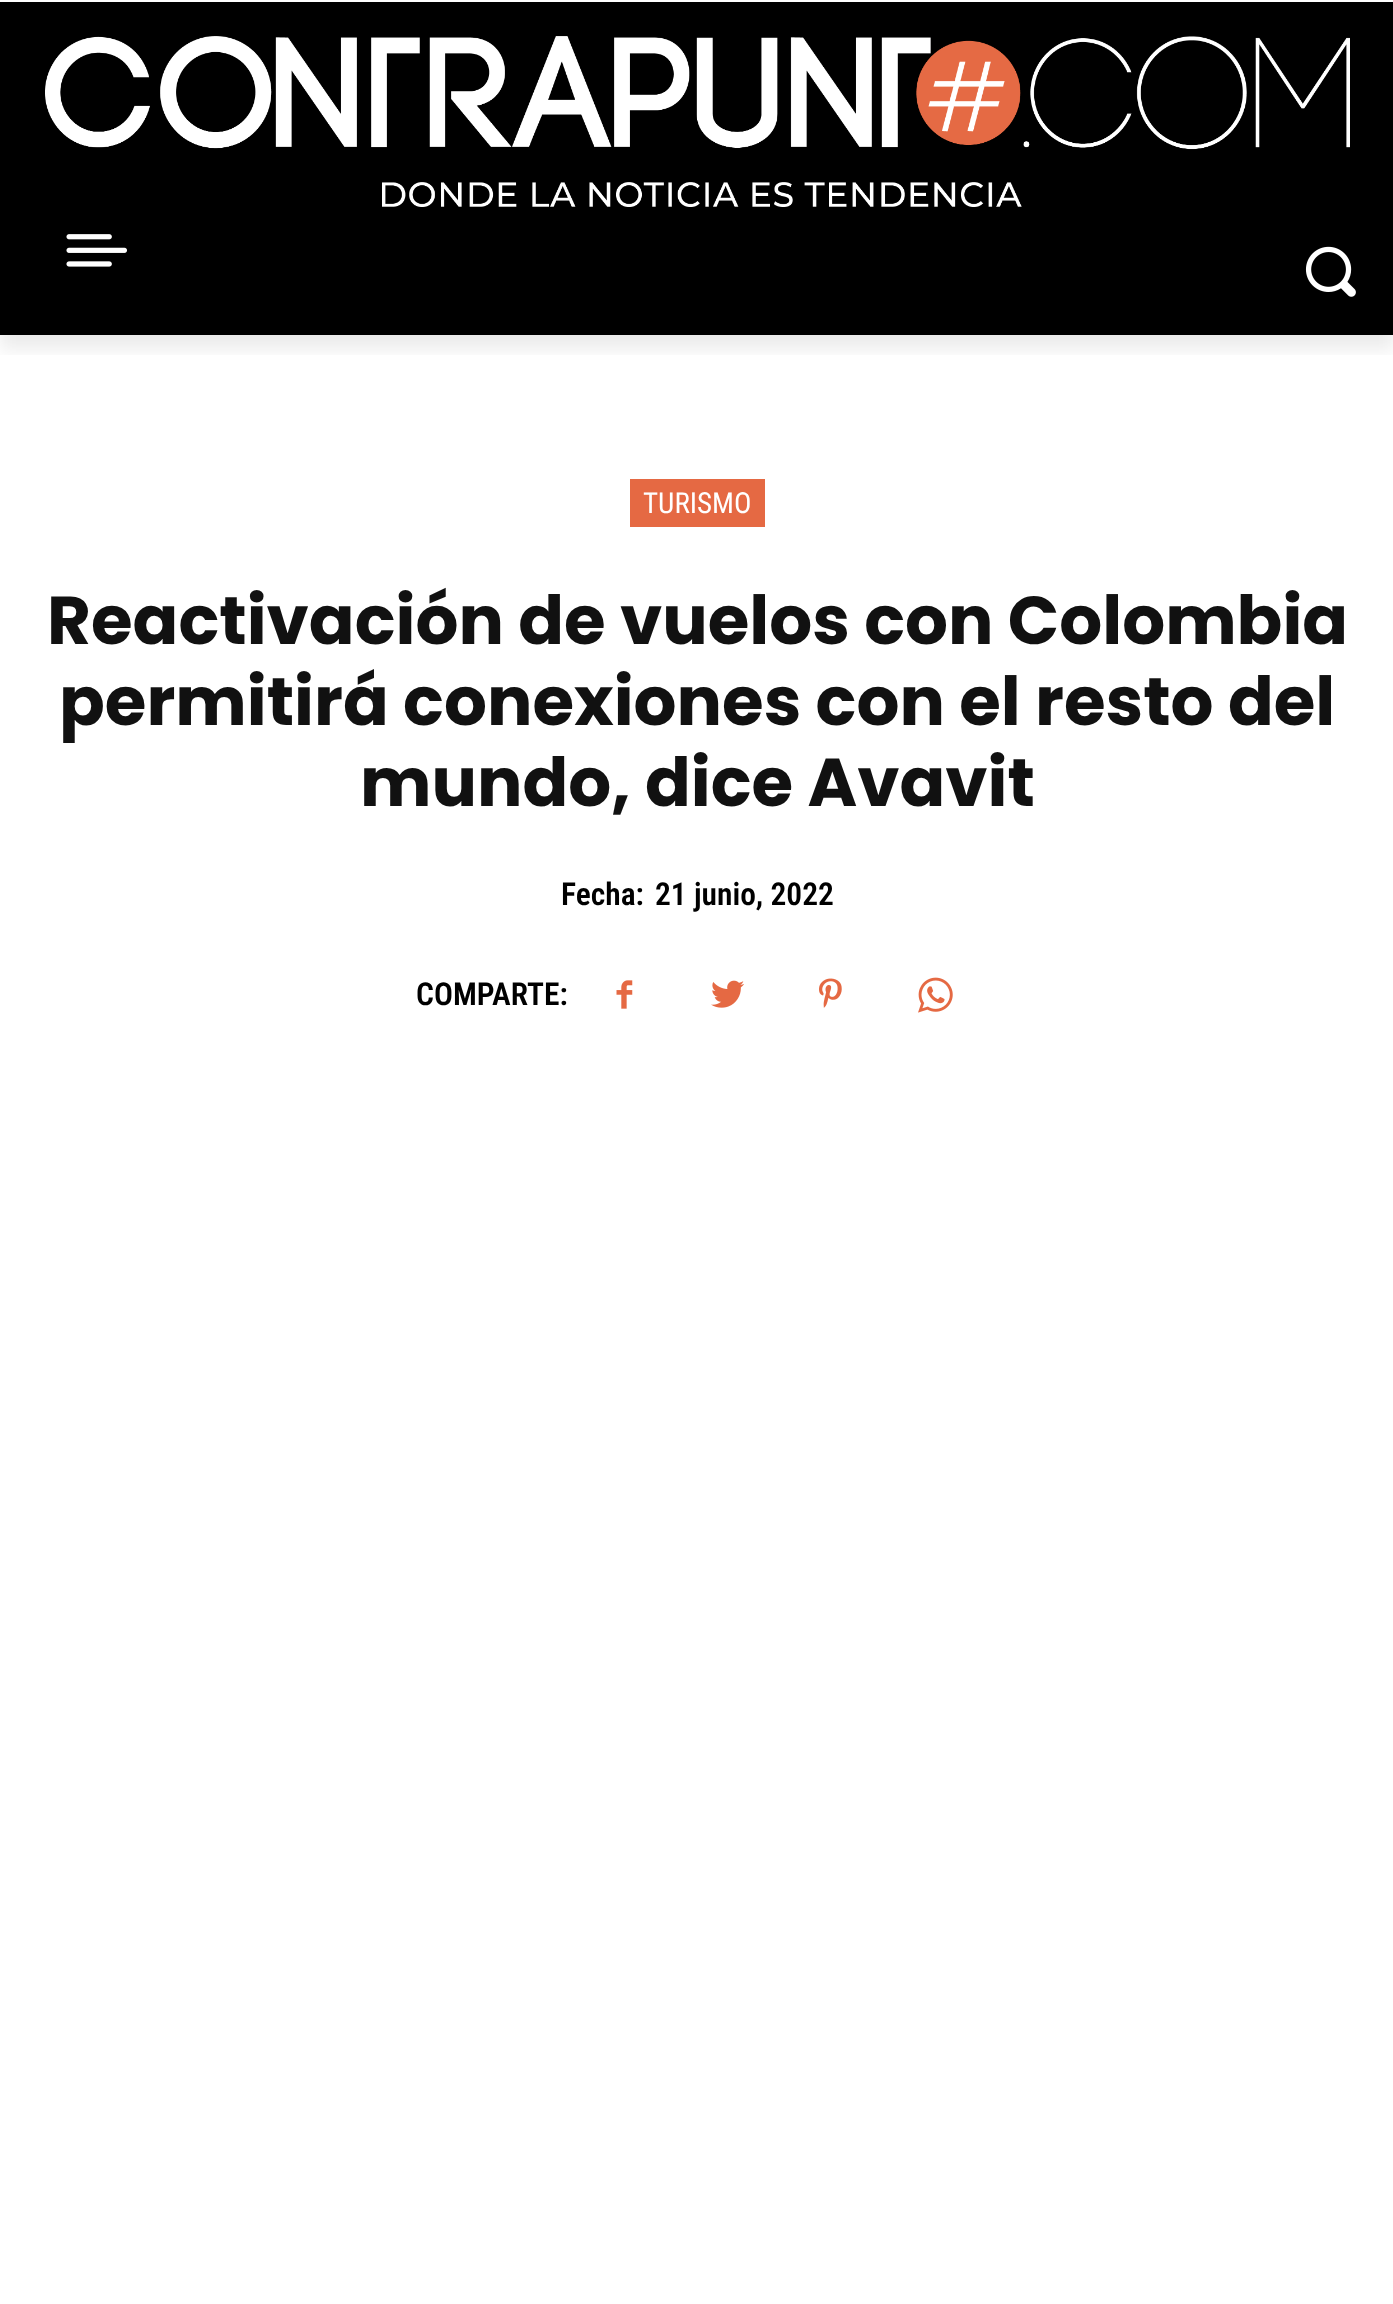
<svg xmlns="http://www.w3.org/2000/svg" width="1393" height="2304" viewBox="0 0 1393 2304">
  <defs>
    <clipPath id="clip1"><path d="M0 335h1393v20H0z"/></clipPath>
  </defs>
  <rect width="100%" height="100%" fill="#fff"/>
  <path d="M0 2h1393v333H0z" fill="#000"/>
  <image x="45" y="36" width="1305" height="171" href="img/1.png"/>
  <image x="66" y="234" width="61" height="33" href="img/2.png"/>
  <image x="1305" y="246" width="51" height="51" href="img/3.png"/>
  <g clip-path="url(#clip1)">
    <path d="M0 14h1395v335H0z" fill="#00000014" filter="blur(9px)"/>
  </g>
  <path d="M630 479h135v48H630z" fill="#e56943"/>
  <image x="616" y="980" width="17" height="29" href="img/4.png"/>
  <image x="711" y="980" width="33" height="28" href="img/5.png"/>
  <image x="819" y="978" width="23" height="30" href="img/6.png"/>
  <image x="918" y="977" width="35" height="36" href="img/7.png"/>
  <text x="643" y="513" font-family="Roboto Condensed" font-size="29" fill="#fff">TURISMO</text>
  <g font-family="Poppins" font-size="67.5" font-weight="bold" fill="#111">
    <text x="47" y="644">Reactivación de vuelos con Colombia</text>
    <text x="59" y="725">permitirá conexiones con el resto del</text>
    <text x="360" y="806">mundo, dice Avavit</text>
  </g>
  <g font-family="Roboto Condensed" font-size="31.5" font-weight="600" fill="#000">
    <text x="561" y="905">Fecha:</text>
    <text x="655" y="905">21 junio, 2022</text>
    <text x="416" y="1005">COMPARTE:</text>
  </g>
</svg>
